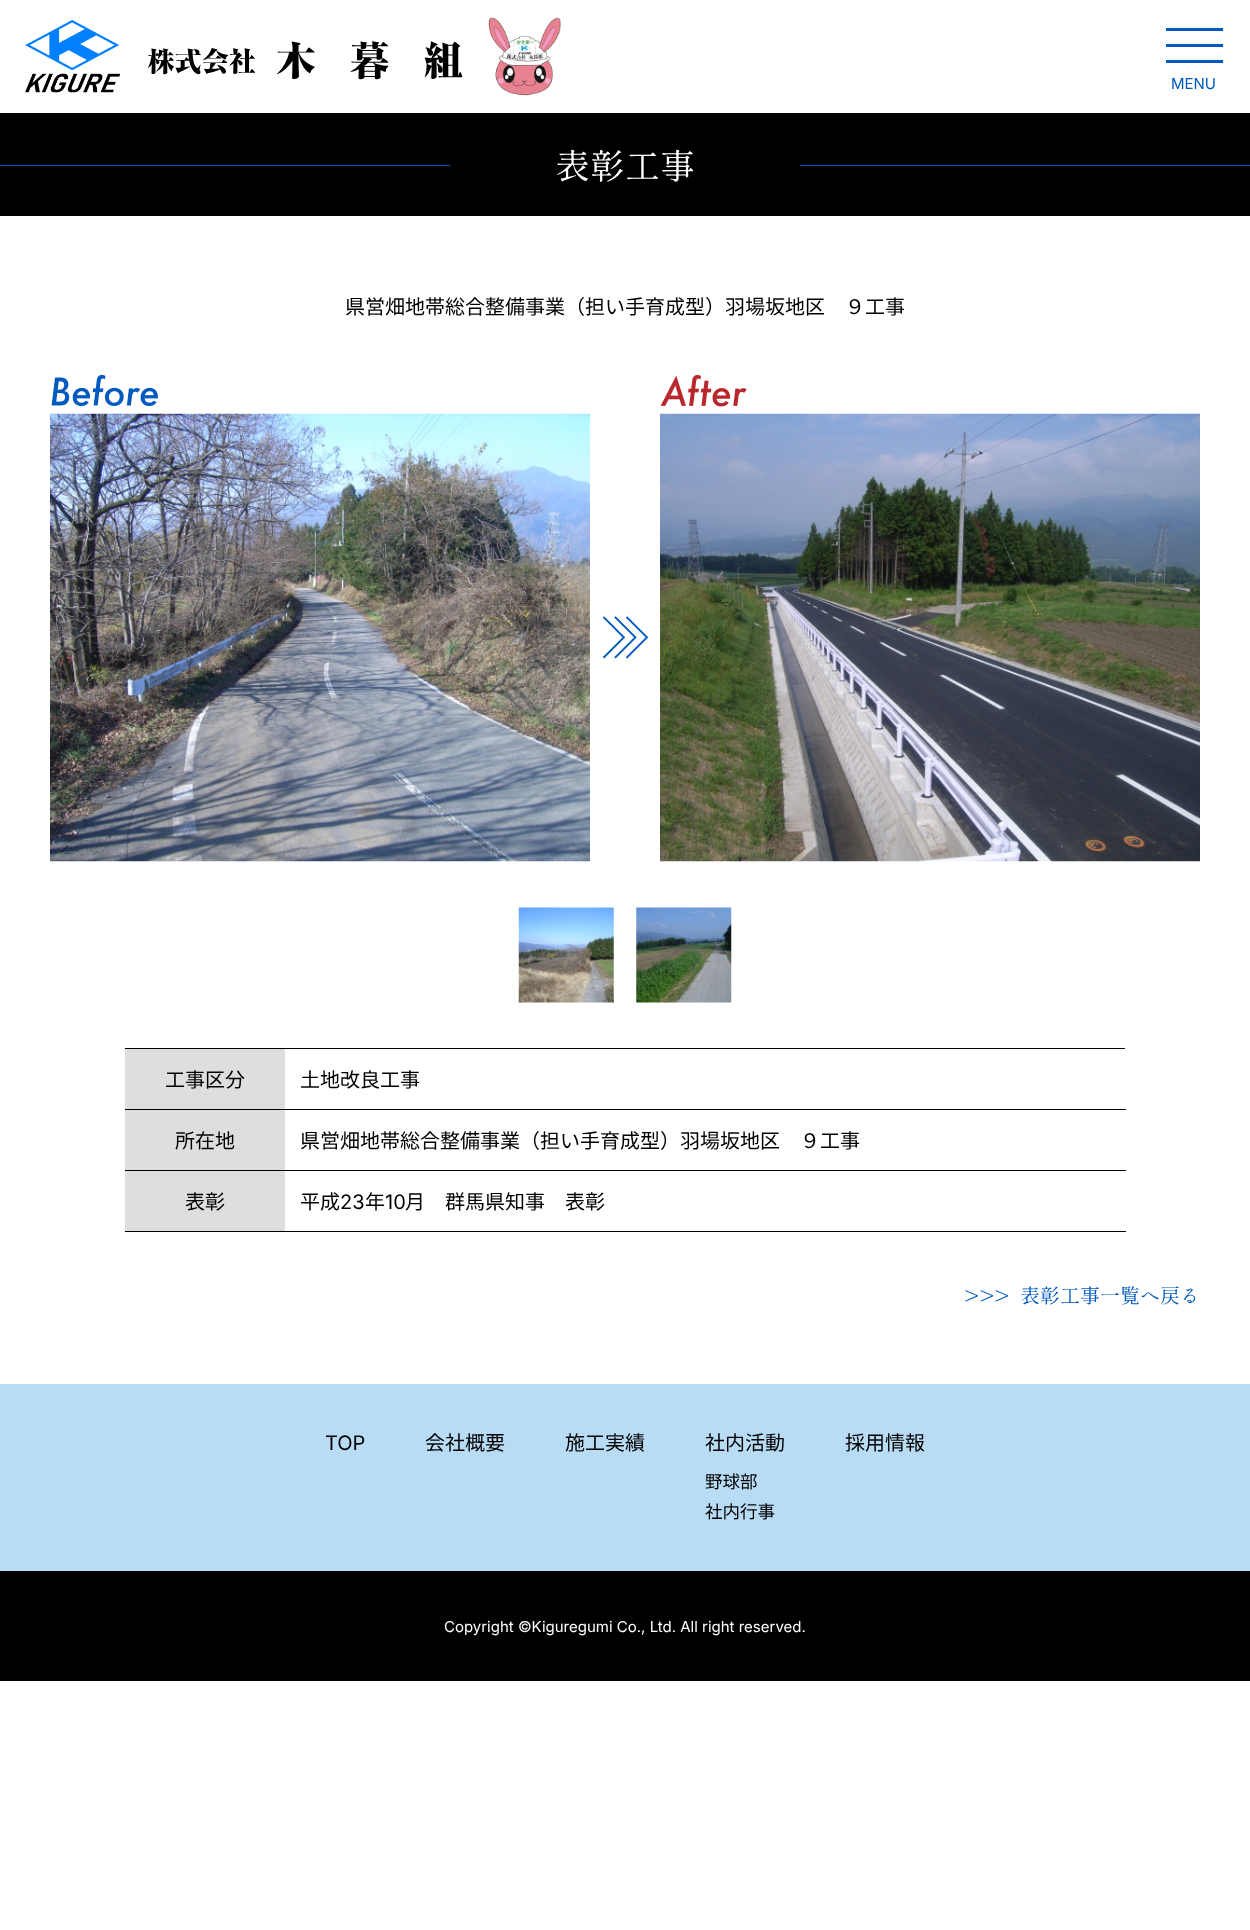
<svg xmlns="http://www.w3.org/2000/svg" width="1250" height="1930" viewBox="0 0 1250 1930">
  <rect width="100%" height="100%" fill="#fff"/>
  <path d="M0 113h1250v103H0z" fill="#000"/>
  <path d="M0 0h1250v113H0z" fill="#00000026" filter="blur(2.5px)"/>
  <path d="M0 0h1250v113H0z" fill="#fff"/>
  <image x="25" y="20" width="438" height="73" href="img/1.png"/>
  <image x="488" y="17" width="73" height="79" href="img/2.png"/>
  <path d="M1166 28h57v3H1166z" fill="#005abe"/>
  <path d="M1166 44h57v3H1166z" fill="#005abe"/>
  <path d="M1166 60h57v3H1166z" fill="#005abe"/>
  <path d="M0 165h450v1H0z" fill="#005abe"/>
  <path d="M800 165h450v1H800z" fill="#005abe"/>
  <image x="603" y="616" width="45" height="43" href="img/3.png"/>
  <image x="51" y="374" width="107" height="32" href="img/4.png"/>
  <image x="50" y="413" width="540" height="449" href="img/5.png"/>
  <image x="660" y="375" width="87" height="32" href="img/6.png"/>
  <image x="660" y="413" width="540" height="449" href="img/7.png"/>
  <image x="518" y="907" width="96" height="96" href="img/8.png"/>
  <image x="636" y="907" width="96" height="96" href="img/9.png"/>
  <path d="M125 1048h1000v1H125z" fill="#000"/>
  <path d="M125 1049h160v60H125z" fill="#dedede"/>
  <path d="M125 1109h1001v1H125z" fill="#000"/>
  <path d="M125 1110h160v60H125z" fill="#dedede"/>
  <path d="M125 1170h1001v1H125z" fill="#000"/>
  <path d="M125 1171h160v60H125z" fill="#dedede"/>
  <path d="M125 1231h1001v1H125z" fill="#000"/>
  <path d="M0 1384h1250v187H0z" fill="#b9dcf5"/>
  <path d="M0 1571h1250v110H0z" fill="#000"/>
  <text x="1171" y="89" font-family="Inter" font-size="15" fill="#005ac0">MENU</text>
  <text x="555" y="179" font-family="'Shippori Mincho B1'" font-size="35" fill="#fff">表彰工事</text>
  <g font-family="Noto Sans JP" font-size="20" fill="#000">
    <text x="345" y="314">県営畑地帯総合整備事業（担い手育成型）羽場坂地区　９工事</text>
    <text x="165" y="1087">工事区分</text>
    <text x="300" y="1087">土地改良工事</text>
    <text x="175" y="1148">所在地</text>
    <text x="300" y="1148">県営畑地帯総合整備事業（担い手育成型）羽場坂地区　９工事</text>
    <text x="185" y="1209">表彰</text>
    <text x="300" y="1209">平成</text>
  </g>
  <text x="340" y="1209" font-family="Inter" font-size="20" fill="#000">23</text>
  <text x="365" y="1209" font-family="Noto Sans JP" font-size="20" fill="#000">年</text>
  <text x="385" y="1209" font-family="Inter" font-size="20" fill="#000">10</text>
  <text x="405" y="1209" font-family="Noto Sans JP" font-size="20" fill="#000">月　群馬県知事　表彰</text>
  <g font-family="'Shippori Mincho B1'" font-size="20" fill="#005ac0">
    <text x="964" y="1303">&gt;&gt;&gt;</text>
    <text x="1020" y="1303">表彰工事一覧へ戻る</text>
  </g>
  <text x="325" y="1450" font-family="Inter" font-size="20" fill="#000">TOP</text>
  <g font-family="Noto Sans JP" font-size="20" fill="#000">
    <text x="425" y="1450">会社概要</text>
    <text x="565" y="1450">施工実績</text>
    <text x="705" y="1450">社内活動</text>
  </g>
  <g font-family="Noto Sans JP" font-size="17.5" fill="#000">
    <text x="705" y="1488">野球部</text>
    <text x="705" y="1518">社内行事</text>
  </g>
  <text x="845" y="1450" font-family="Noto Sans JP" font-size="20" fill="#000">採用情報</text>
  <text x="444" y="1632" font-family="Inter" font-size="15" fill="#fff">Copyright ©Kiguregumi Co., Ltd. All right reserved.</text>
</svg>
